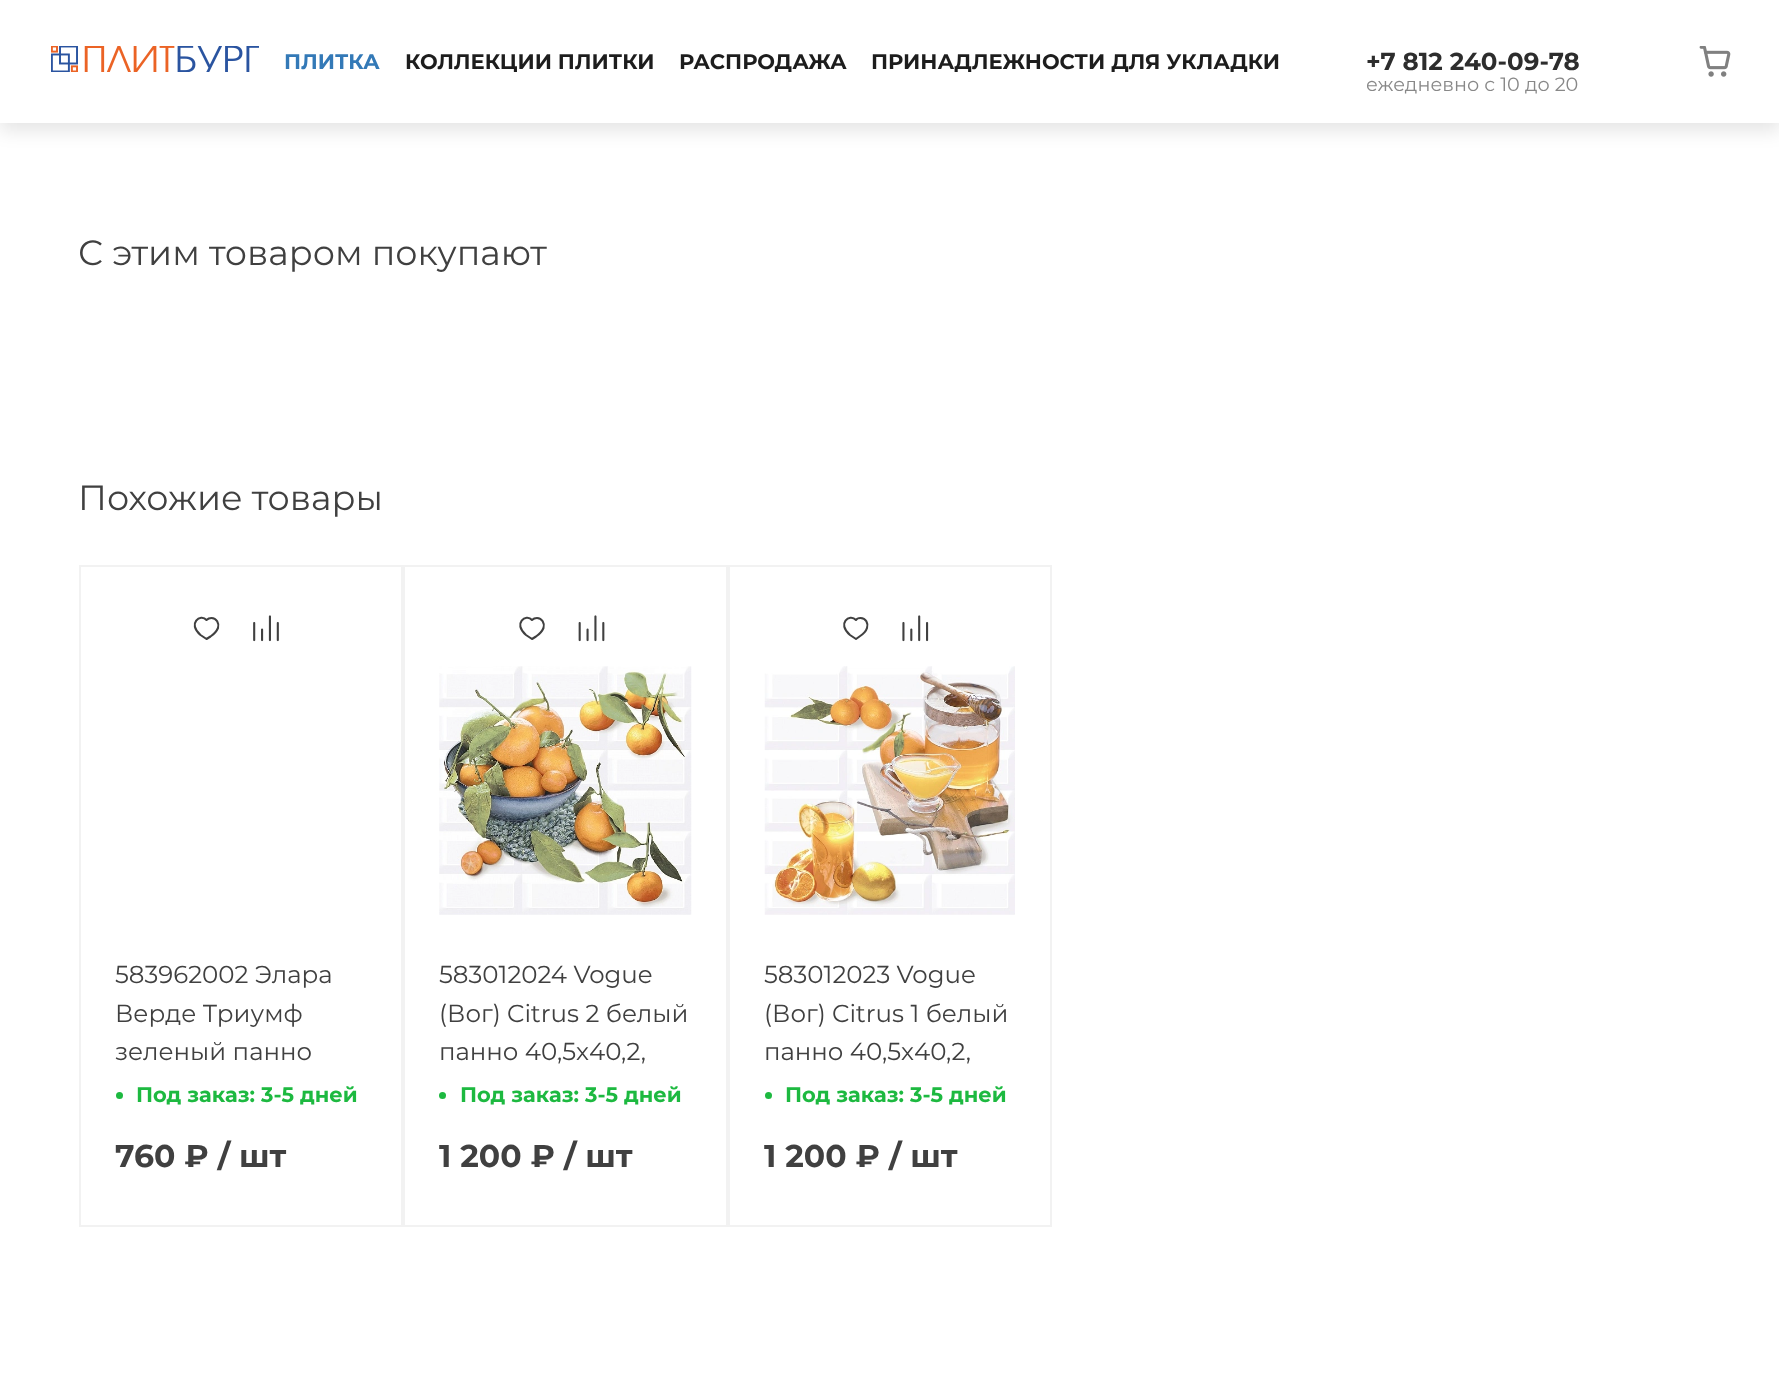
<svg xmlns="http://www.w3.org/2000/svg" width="1779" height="1373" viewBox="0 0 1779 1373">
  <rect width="100%" height="100%" fill="#fff"/>
  <path d="M0 9h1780v122H0z" fill="#0000001a" filter="blur(9px)"/>
  <path d="M0 0h1779v123H0z" fill="#fff"/>
  <image x="51" y="46" width="208" height="26" href="img/1.png"/>
  <image x="1699" y="46" width="32" height="31" href="img/2.png"/>
  <path d="M80 566h322v660H80z" fill="none" stroke="#f2f2f2" stroke-width="2"/>
  <path d="M211.5 618C216.5 618 219.5 623.5 218 628C216.5 631.5 213.5 634.5 210.5 636.5L206.5 639L200.5 635C187 623.5 200.5 613 206.5 620C207.5 619 209 618 211.5 618Z" fill="none" stroke="#404040" stroke-width="2.1" stroke-linecap="round" stroke-linejoin="round"/>
  <image x="253" y="615" width="26" height="27" href="img/3.png"/>
  <circle cx="119.5" cy="1095.5" r="3.5" fill="#1db940"/>
  <path d="M404 566h323v660H404z" fill="none" stroke="#f2f2f2" stroke-width="2"/>
  <path d="M537 618C542 618 545 623.5 543.5 628C542 631.5 539 634.5 536 636.5L532 639L526 635C512.5 623.5 526 613 532 620C533 619 534.5 618 537 618Z" fill="none" stroke="#404040" stroke-width="2.1" stroke-linecap="round" stroke-linejoin="round"/>
  <image x="578" y="615" width="27" height="27" href="img/4.png"/>
  <image x="439" y="666" width="253" height="249" href="img/5.png"/>
  <circle cx="442.5" cy="1095.5" r="3.5" fill="#1db940"/>
  <path d="M729 566h322v660H729z" fill="none" stroke="#f2f2f2" stroke-width="2"/>
  <path d="M860.5 618C866 618 868.5 623.5 867 628C866 631.5 862.5 634.5 859.5 636.5L856 639L850 635C836.5 623.5 849.5 613 856 620C856.5 619 858 618 860.5 618Z" fill="none" stroke="#404040" stroke-width="2.1" stroke-linecap="round" stroke-linejoin="round"/>
  <image x="902" y="615" width="27" height="27" href="img/6.png"/>
  <image x="764" y="666" width="251" height="249" href="img/7.png"/>
  <circle cx="768.5" cy="1095.5" r="3.5" fill="#1db940"/>
  <text x="284" y="69" font-family="Montserrat" font-size="21" font-weight="bold" fill="#3379b7">ПЛИТКА</text>
  <g font-family="Montserrat" font-size="21" font-weight="bold" fill="#1d1d1d">
    <text x="405" y="69">КОЛЛЕКЦИИ ПЛИТКИ</text>
    <text x="679" y="69">РАСПРОДАЖА</text>
    <text x="871" y="69">ПРИНАДЛЕЖНОСТИ ДЛЯ УКЛАДКИ</text>
  </g>
  <text x="1366" y="70" font-family="Montserrat" font-size="24.5" font-weight="bold" fill="#2d2d2d">+7 812 240-09-78</text>
  <text x="1366" y="91" font-family="Montserrat" font-size="19.25" fill="#888">ежедневно с 10 до 20</text>
  <g font-family="Montserrat" font-size="35" fill="#404040">
    <text x="78" y="265">С этим товаром покупают</text>
    <text x="78" y="510">Похожие товары</text>
  </g>
  <g font-family="Montserrat" font-size="24.5" fill="#404040">
    <text x="115" y="983">583962002 Элара</text>
    <text x="115" y="1022">Верде Триумф</text>
    <text x="115" y="1060">зеленый панно</text>
  </g>
  <text x="136" y="1102" font-family="Montserrat" font-size="21" font-weight="bold" fill="#1db940">Под заказ: 3-5 дней</text>
  <text x="115" y="1167" font-family="Montserrat" font-size="31.5" font-weight="bold" fill="#404040">760 ₽ / шт</text>
  <g font-family="Montserrat" font-size="24.5" fill="#404040">
    <text x="439" y="983">583012024 Vogue</text>
    <text x="439" y="1022">(Вог) Citrus 2 белый</text>
    <text x="439" y="1060">панно 40,5х40,2,</text>
  </g>
  <text x="460" y="1102" font-family="Montserrat" font-size="21" font-weight="bold" fill="#1db940">Под заказ: 3-5 дней</text>
  <text x="439" y="1167" font-family="Montserrat" font-size="31.5" font-weight="bold" fill="#404040">1 200 ₽ / шт</text>
  <g font-family="Montserrat" font-size="24.5" fill="#404040">
    <text x="764" y="983">583012023 Vogue</text>
    <text x="764" y="1022">(Вог) Citrus 1 белый</text>
    <text x="764" y="1060">панно 40,5х40,2,</text>
  </g>
  <text x="785" y="1102" font-family="Montserrat" font-size="21" font-weight="bold" fill="#1db940">Под заказ: 3-5 дней</text>
  <text x="764" y="1167" font-family="Montserrat" font-size="31.5" font-weight="bold" fill="#404040">1 200 ₽ / шт</text>
</svg>
